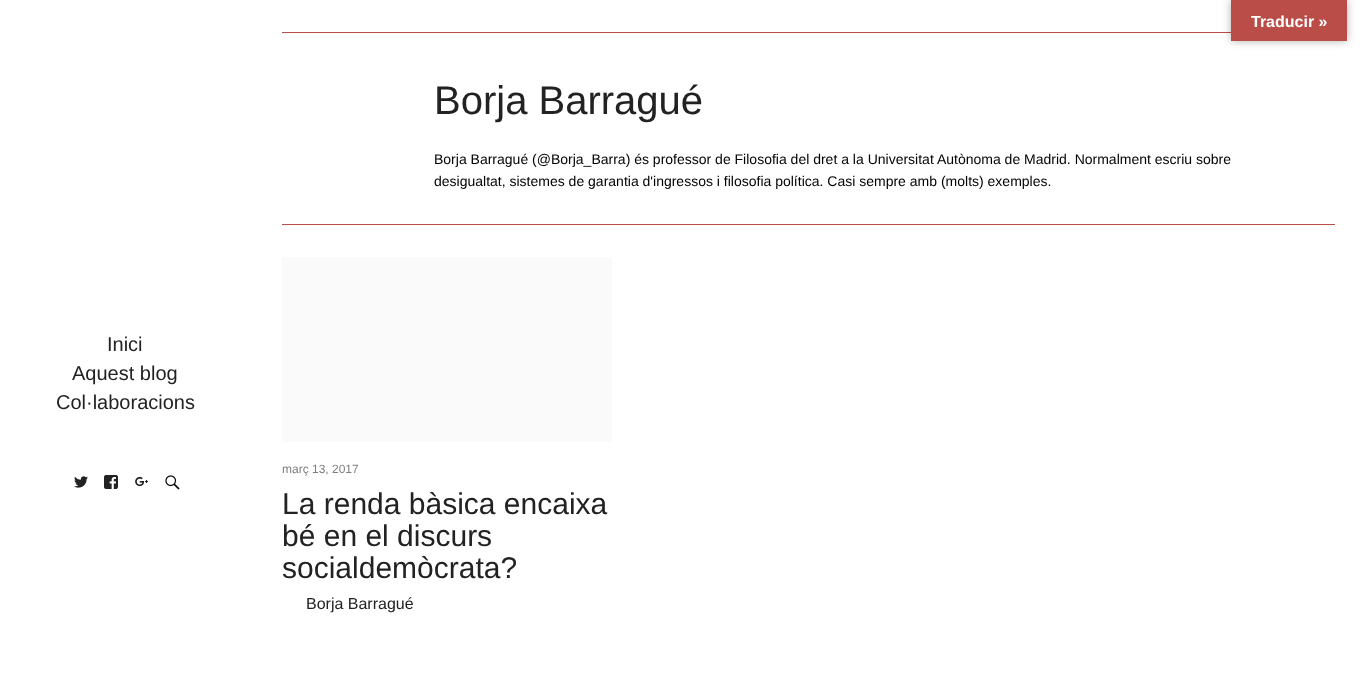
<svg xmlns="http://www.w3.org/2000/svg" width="1367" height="690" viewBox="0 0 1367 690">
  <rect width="100%" height="100%" fill="#fff"/>
  <path d="M282 32h949v1H282z" fill="#ba4d47"/>
  <path d="M1231 0h116v41H1231z" fill="#0000004d" filter="blur(4.5px)"/>
  <path d="M1231 0h116v41H1231z" fill="#ba4d47"/>
  <image x="74" y="476" width="14" height="12" href="img/1.png"/>
  <image x="104" y="475" width="14" height="14" href="img/2.png"/>
  <image x="135" y="476" width="13" height="11" href="img/3.png"/>
  <image x="165" y="475" width="15" height="15" href="img/4.png"/>
  <path d="M282 224h1053v1H282z" fill="#ba4d47"/>
  <path d="M282 257h330v185H282z" fill="#fafafa"/>
  <text x="1251" y="27" font-family="Liberation Sans" font-size="16" font-weight="bold" fill="#fff">Traducir »</text>
  <g font-family="Liberation Sans" font-size="20" fill="#222">
    <text x="107" y="351">Inici</text>
    <text x="72" y="380">Aquest blog</text>
    <text x="56" y="409">Col·laboracions</text>
  </g>
  <text x="434" y="114" font-family="Liberation Sans" font-size="40" fill="#222">Borja Barragué</text>
  <g font-family="Liberation Sans" font-size="14" fill="#000">
    <text x="434" y="164">Borja Barragué (@Borja_Barra) és professor de Filosofia del dret a la Universitat Autònoma de Madrid. Normalment escriu sobre</text>
    <text x="434" y="186">desigualtat, sistemes de garantia d'ingressos i filosofia política. Casi sempre amb (molts) exemples.</text>
  </g>
  <text x="282" y="473" font-family="Liberation Sans" font-size="12" fill="#7e7e7e">març 13, 2017</text>
  <g font-family="Liberation Sans" font-size="30" fill="#222">
    <text x="282" y="514">La renda bàsica encaixa</text>
    <text x="282" y="546">bé en el discurs</text>
    <text x="282" y="578">socialdemòcrata?</text>
  </g>
  <text x="306" y="609" font-family="Liberation Sans" font-size="16" fill="#222">Borja Barragué</text>
</svg>
